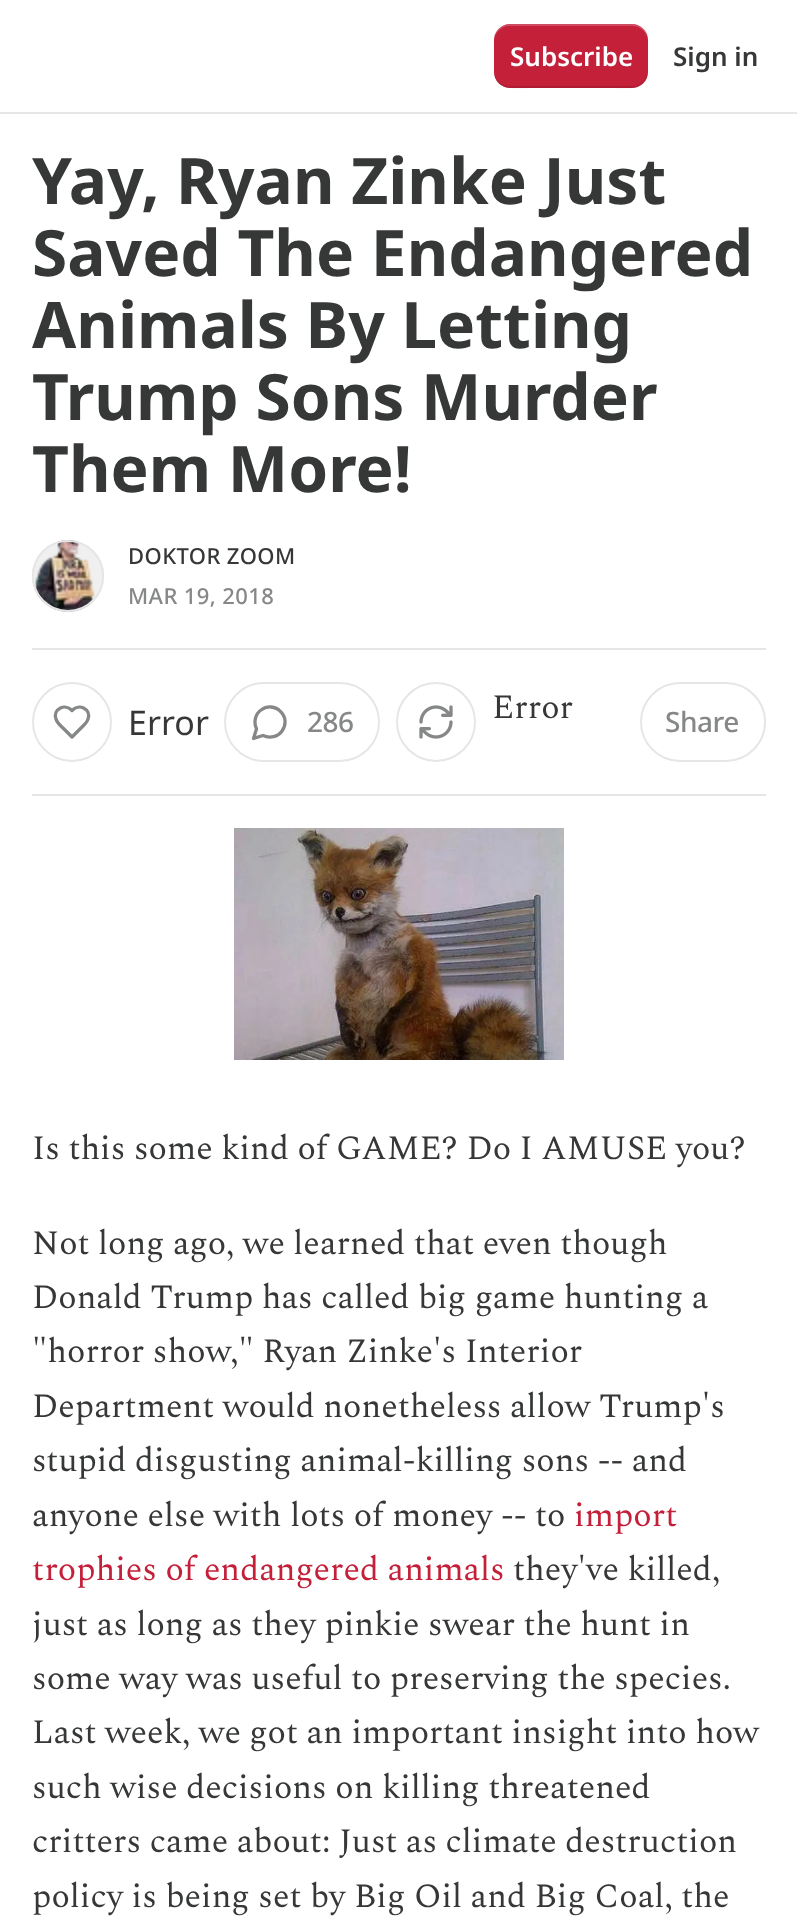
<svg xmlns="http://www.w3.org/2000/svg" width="797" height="1927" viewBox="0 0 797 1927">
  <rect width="100%" height="100%" fill="#fff"/>
  <path d="M0 112h797v2H0z" fill="#e6e6e6"/>
  <rect x="494" y="24" width="154" height="64" rx="16" fill="#c4203a"/>
  <path d="M494 70C494 92 514 88 530 88H612C628 88 648 92 648 70C648 79 641 86 632 86H510C501 86 494 79 494 70Z" fill="#0000001a"/>
  <path d="M510 26H632C641 26 648 33 648 42C648 20 628 24 612 24H530C514 24 494 20 494 42C494 33 501 26 510 26Z" fill="#ffffff33"/>
  <circle cx="68" cy="576" r="35" fill="none" stroke="#e6e6e6" stroke-width="2"/>
  <circle cx="68" cy="576" r="36" fill="#f0f0f0"/>
  <image x="35" y="540" width="60" height="72" href="img/1.png"/>
  <circle cx="68" cy="576" r="35" fill="none" stroke="#e6e6e6" stroke-width="2"/>
  <path d="M32 648h734v2H32z" fill="#e6e6e6"/>
  <path d="M32 794h734v2H32z" fill="#e6e6e6"/>
  <circle cx="436" cy="722" r="39" fill="none" stroke="#e6e6e6" stroke-width="2"/>
  <image x="419" y="705" width="34" height="34" href="img/2.png"/>
  <circle cx="72" cy="722" r="39" fill="none" stroke="#e6e6e6" stroke-width="2"/>
  <path d="M83.5 725.5C85.5 723.5 87.5 721.5 88 719C91.5 709 79 703 72 710.5C65 703 52.5 709 56 719C57 723 61 726 64 729L72 737Z" fill="none" stroke="#868787" stroke-width="3.3" stroke-linecap="round" stroke-linejoin="round"/>
  <rect x="225" y="683" width="154" height="78" rx="39" fill="none" stroke="#e6e6e6" stroke-width="2"/>
  <path d="M263 735.5C269.5 738.5 278 737 282 731C286.5 725 286 716.5 280.5 711.5C275.5 706 267 705.5 261 710C255 714 253.5 722.5 256.5 729L253.5 738.5Z" fill="none" stroke="#868787" stroke-width="3.3" stroke-linecap="round" stroke-linejoin="round"/>
  <rect x="641" y="683" width="124" height="78" rx="39" fill="none" stroke="#e6e6e6" stroke-width="2"/>
  <image x="234" y="828" width="330" height="232" href="img/3.png"/>
  <text x="510" y="66" font-family="Noto Sans" font-size="26" font-weight="600" fill="#fff">Subscribe</text>
  <text x="673" y="66" font-family="Noto Sans" font-size="26" font-weight="600" fill="#363737">Sign in</text>
  <g font-family="Noto Sans" font-size="64" font-weight="bold" fill="#363737">
    <text x="32" y="204">Yay, Ryan Zinke Just</text>
    <text x="32" y="276">Saved The Endangered</text>
    <text x="32" y="348">Animals By Letting</text>
    <text x="32" y="420">Trump Sons Murder</text>
    <text x="32" y="492">Them More!</text>
  </g>
  <text x="128" y="564" font-family="Noto Sans" font-size="22" font-weight="500" letter-spacing="0.4" fill="#363737">DOKTOR ZOOM</text>
  <text x="128" y="604" font-family="Noto Sans" font-size="22" font-weight="500" letter-spacing="0.4" fill="#868787">MAR 19, 2018</text>
  <text x="492" y="718" font-family="Spectral" font-size="34" fill="#363737">Error</text>
  <text x="128" y="735" font-family="Noto Sans" font-size="34" fill="#363737">Error</text>
  <g font-family="Noto Sans" font-size="28" font-weight="500" letter-spacing="-0.5" fill="#868787">
    <text x="307" y="732">286</text>
    <text x="665" y="732">Share</text>
  </g>
  <g font-family="Spectral" font-size="34" fill="#363737">
    <text x="32" y="1159">Is this some kind of GAME? Do I AMUSE you?</text>
    <text x="32" y="1254">Not long ago, we learned that even though</text>
    <text x="32" y="1308">Donald Trump has called big game hunting a</text>
    <text x="32" y="1362">"horror show," Ryan Zinke's Interior</text>
    <text x="32" y="1417">Department would nonetheless allow Trump's</text>
    <text x="32" y="1471">stupid disgusting animal-killing sons -- and</text>
    <text x="32" y="1526">anyone else with lots of money -- to</text>
  </g>
  <g font-family="Spectral" font-size="34" fill="#c4203a">
    <text x="574" y="1526">import</text>
    <text x="32" y="1580">trophies of endangered animals</text>
  </g>
  <g font-family="Spectral" font-size="34" fill="#363737">
    <text x="513" y="1580">they've killed,</text>
    <text x="32" y="1635">just as long as they pinkie swear the hunt in</text>
    <text x="32" y="1689">some way was useful to preserving the species.</text>
    <text x="32" y="1743">Last week, we got an important insight into how</text>
    <text x="32" y="1798">such wise decisions on killing threatened</text>
    <text x="32" y="1852">critters came about: Just as climate destruction</text>
    <text x="32" y="1907">policy is being set by Big Oil and Big Coal, the</text>
  </g>
</svg>
